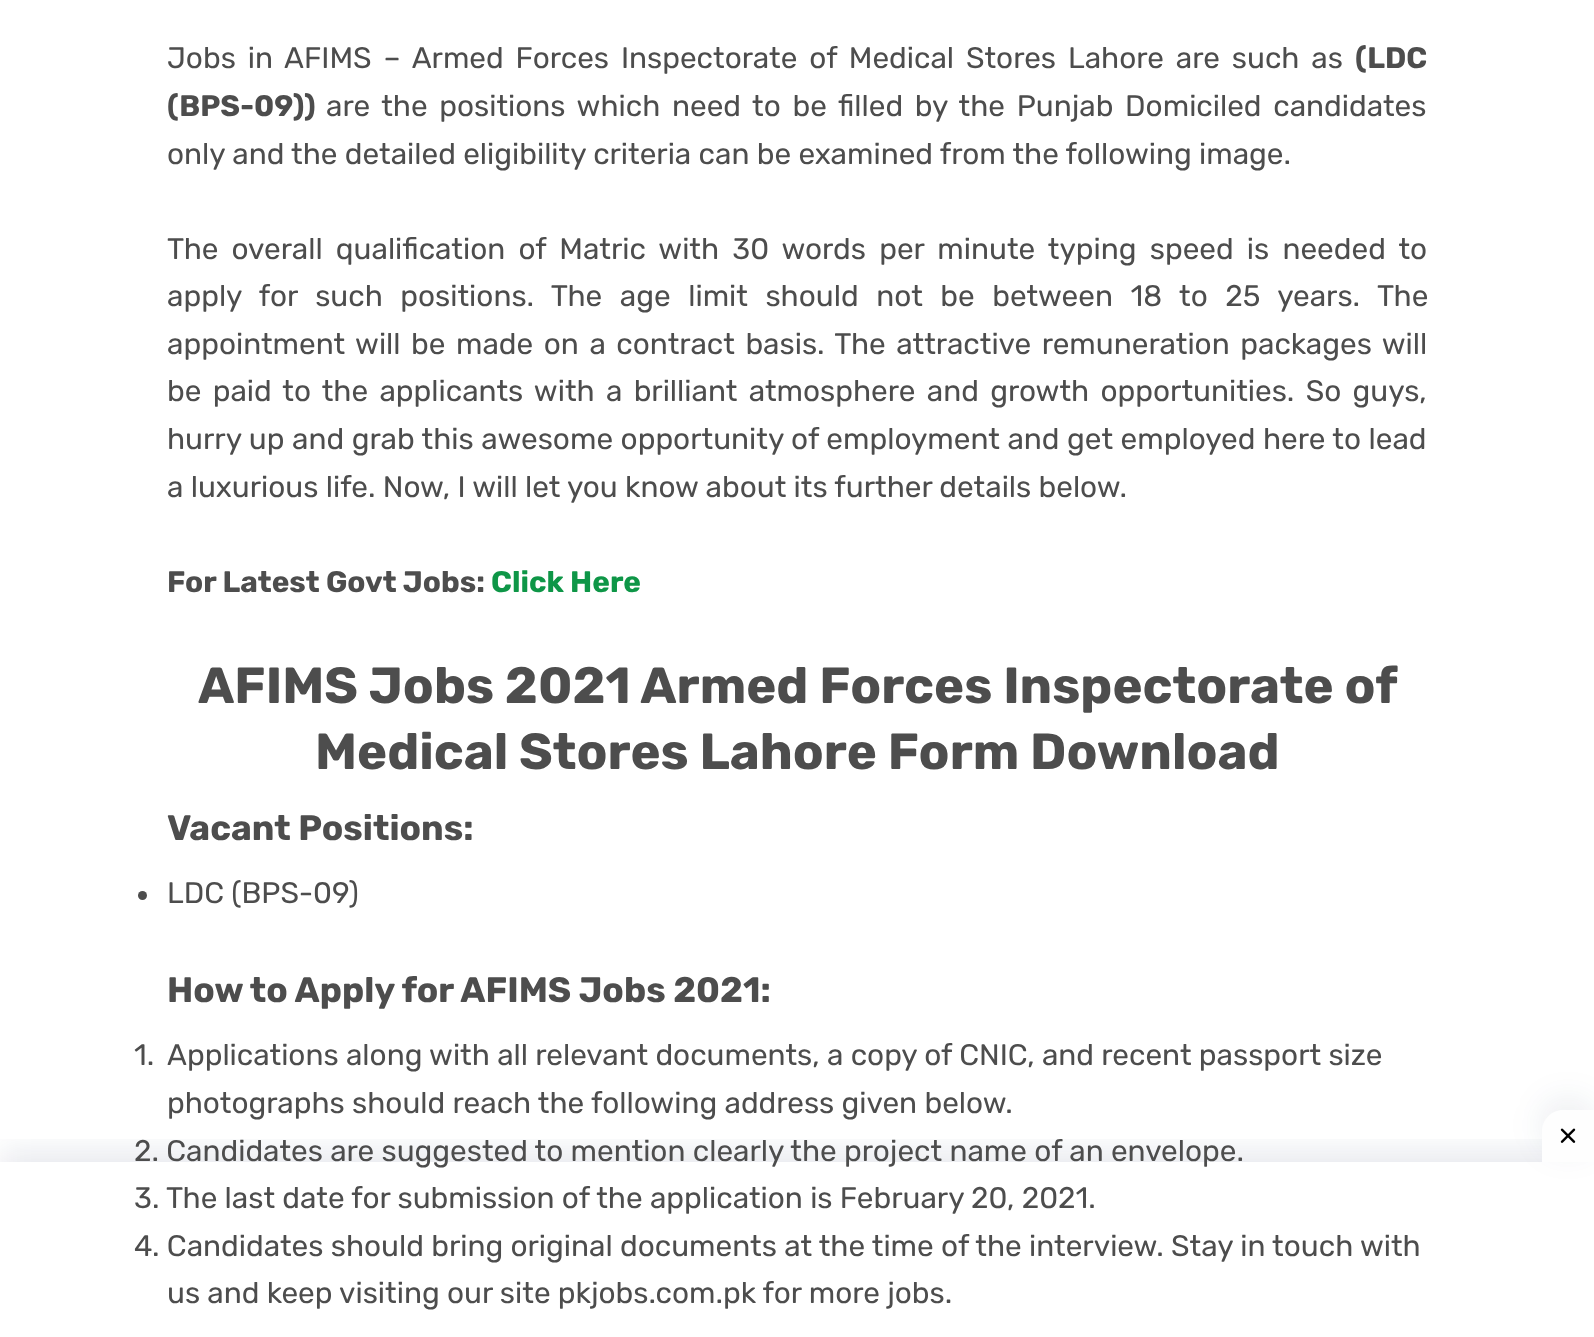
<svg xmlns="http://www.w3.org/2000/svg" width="1594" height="1337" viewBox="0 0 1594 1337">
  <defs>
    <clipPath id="clip1"><path d="M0 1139h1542v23H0z"/></clipPath>
  </defs>
  <rect width="100%" height="100%" fill="#fff"/>
  <circle cx="142.5" cy="895.5" r="4.5" fill="#4d4d4d"/>
  <g clip-path="url(#clip1)">
    <path d="M0 1152h1594v175H0z" fill="#09204c1a" filter="blur(16px)"/>
  </g>
  <path d="M134 1162h1285v148H134z" fill="#ffffff1c"/>
  <rect x="1542" y="1099" width="52" height="53" rx="21" fill="#09204c14" filter="blur(16px)"/>
  <path d="M1563 1110H1594V1162H1542V1131C1542 1119.5 1551.5 1110 1563 1110Z" fill="#fefefe"/>
  <image x="1560" y="1128" width="16" height="15" href="img/1.png"/>
  <text x="167" y="68" word-spacing="4.6" font-family="Rubik" font-size="29.75" fill="#4d4d4d">Jobs in AFIMS – Armed Forces Inspectorate of Medical Stores Lahore are such as</text>
  <g font-family="Rubik" font-size="29.75" font-weight="bold" fill="#4d4d4d">
    <text x="1355" y="68">(LDC</text>
    <text x="167" y="116">(BPS-09))</text>
  </g>
  <g font-family="Rubik" font-size="29.75" fill="#4d4d4d">
    <text x="326" y="116" word-spacing="4.4">are the positions which need to be filled by the Punjab Domiciled candidates</text>
    <text x="167" y="164">only and the detailed eligibility criteria can be examined from the following image.</text>
    <text x="167" y="259" word-spacing="5.9">The overall qualification of Matric with 30 words per minute typing speed is needed to</text>
    <text x="167" y="306" word-spacing="10.25">apply for such positions. The age limit should not be between 18 to 25 years. The</text>
    <text x="167" y="354" word-spacing="3.25">appointment will be made on a contract basis. The attractive remuneration packages will</text>
    <text x="167" y="401" word-spacing="4">be paid to the applicants with a brilliant atmosphere and growth opportunities. So guys,</text>
    <text x="167" y="449" word-spacing="0.25">hurry up and grab this awesome opportunity of employment and get employed here to lead</text>
    <text x="167" y="497">a luxurious life. Now, I will let you know about its further details below.</text>
  </g>
  <text x="167" y="592" font-family="Rubik" font-size="29.75" font-weight="bold" fill="#4d4d4d">For Latest Govt Jobs:</text>
  <text x="491" y="592" font-family="Rubik" font-size="29.75" font-weight="bold" fill="#0e9647">Click Here</text>
  <g font-family="Rubik" font-size="50.8" font-weight="bold" fill="#4d4d4d">
    <text x="198" y="703">AFIMS Jobs 2021 Armed Forces Inspectorate of</text>
    <text x="315" y="769">Medical Stores Lahore Form Download</text>
  </g>
  <text x="167" y="840" font-family="Rubik" font-size="35.25" font-weight="bold" fill="#4d4d4d">Vacant Positions:</text>
  <text x="167" y="903" font-family="Rubik" font-size="29.75" fill="#4d4d4d">LDC (BPS-09)</text>
  <text x="167" y="1002" font-family="Rubik" font-size="35.25" font-weight="bold" fill="#4d4d4d">How to Apply for AFIMS Jobs 2021:</text>
  <g font-family="Rubik" font-size="29.75" fill="#4d4d4d">
    <text x="134" y="1065">1.</text>
    <text x="167" y="1065">Applications along with all relevant documents, a copy of CNIC, and recent passport size</text>
    <text x="167" y="1113">photographs should reach the following address given below.</text>
    <text x="134" y="1161">2. Candidates are suggested to mention clearly the project name of an envelope.</text>
    <text x="134" y="1208">3. The last date for submission of the application is February 20, 2021.</text>
    <text x="134" y="1256">4. Candidates should bring original documents at the time of the interview. Stay in touch with</text>
    <text x="167" y="1303">us and keep visiting our site pkjobs.com.pk for more jobs.</text>
  </g>
</svg>
